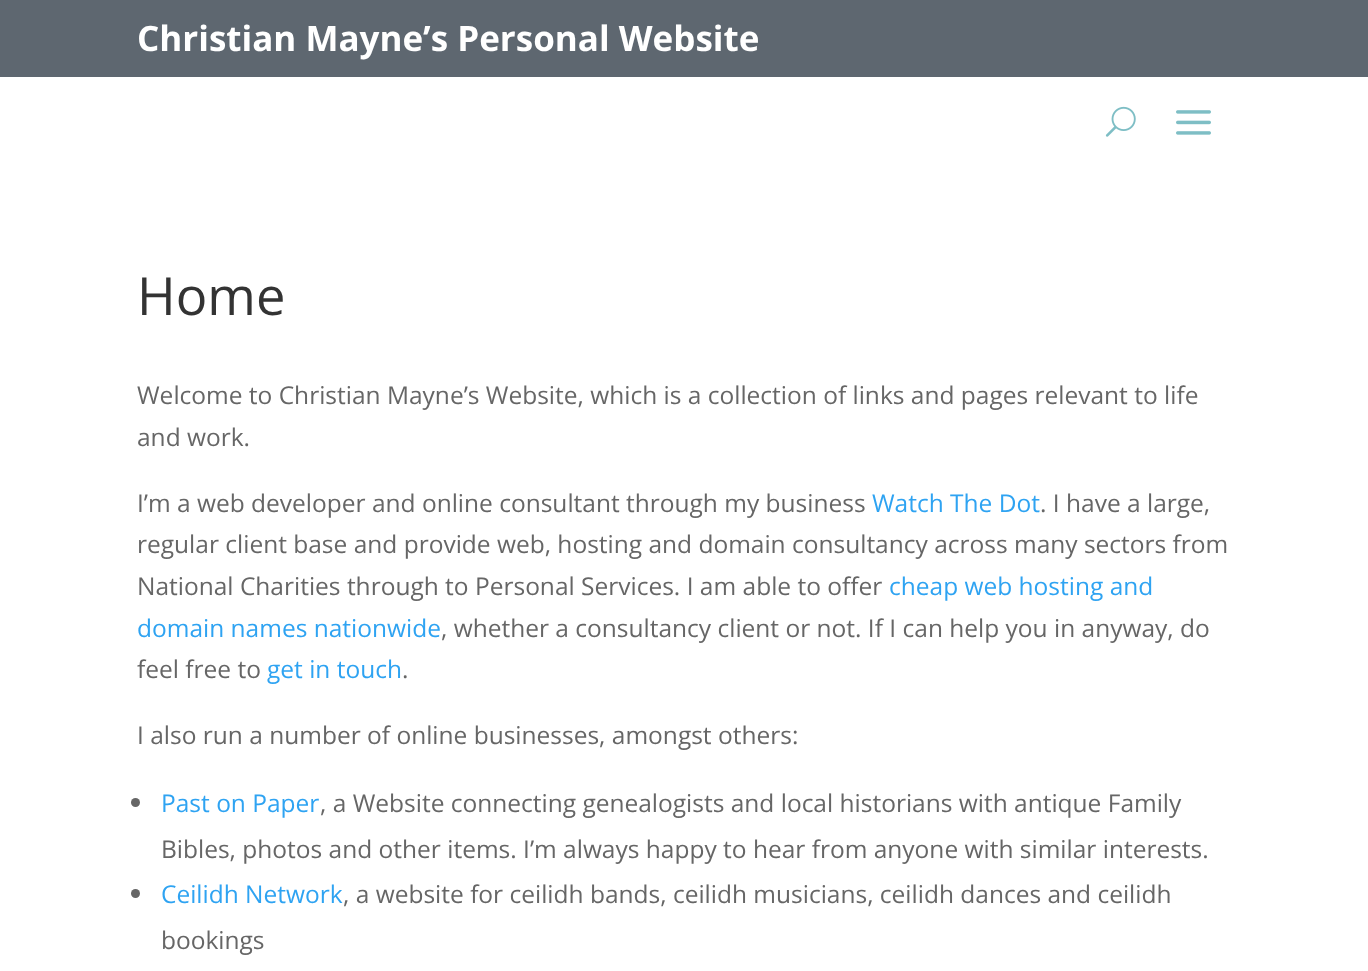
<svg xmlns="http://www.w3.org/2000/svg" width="1368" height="971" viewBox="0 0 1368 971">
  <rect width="100%" height="100%" fill="#fff"/>
  <path d="M0 0h1368v77H0z" fill="#5e6770"/>
  <image x="1105" y="106" width="31" height="31" href="img/1.png"/>
  <image x="1176" y="110" width="35" height="25" href="img/2.png"/>
  <circle cx="135.5" cy="802.5" r="4.5" fill="#666"/>
  <circle cx="135.5" cy="893.5" r="4.5" fill="#666"/>
  <text x="137" y="51" font-family="Open Sans" font-size="35" font-weight="bold" fill="#fff">Christian Mayne’s Personal Website</text>
  <text x="137" y="315" font-family="Open Sans" font-size="52.5" fill="#333">Home</text>
  <g font-family="Open Sans" font-size="24.5" fill="#666">
    <text x="137" y="404">Welcome to Christian Mayne’s Website, which is a collection of links and pages relevant to life</text>
    <text x="137" y="446">and work.</text>
    <text x="137" y="512">I’m a web developer and online consultant through my business</text>
  </g>
  <text x="872" y="512" font-family="Open Sans" font-size="24.5" fill="#2ea3f2">Watch The Dot</text>
  <g font-family="Open Sans" font-size="24.5" fill="#666">
    <text x="1040" y="512">. I have a large,</text>
    <text x="137" y="553">regular client base and provide web, hosting and domain consultancy across many sectors from</text>
    <text x="137" y="595">National Charities through to Personal Services. I am able to offer</text>
  </g>
  <g font-family="Open Sans" font-size="24.5" fill="#2ea3f2">
    <text x="889" y="595">cheap web hosting and</text>
    <text x="137" y="637">domain names nationwide</text>
  </g>
  <g font-family="Open Sans" font-size="24.5" fill="#666">
    <text x="441" y="637">, whether a consultancy client or not. If I can help you in anyway, do</text>
    <text x="137" y="678">feel free to</text>
  </g>
  <text x="267" y="678" font-family="Open Sans" font-size="24.5" fill="#2ea3f2">get in touch</text>
  <g font-family="Open Sans" font-size="24.5" fill="#666">
    <text x="402" y="678">.</text>
    <text x="137" y="744">I also run a number of online businesses, amongst others:</text>
  </g>
  <text x="161" y="812" font-family="Open Sans" font-size="24.5" fill="#2ea3f2">Past on Paper</text>
  <g font-family="Open Sans" font-size="24.5" fill="#666">
    <text x="320" y="812">, a Website connecting genealogists and local historians with antique Family</text>
    <text x="161" y="858">Bibles, photos and other items. I’m always happy to hear from anyone with similar interests.</text>
  </g>
  <text x="161" y="903" font-family="Open Sans" font-size="24.5" fill="#2ea3f2">Ceilidh Network</text>
  <g font-family="Open Sans" font-size="24.5" fill="#666">
    <text x="343" y="903">, a website for ceilidh bands, ceilidh musicians, ceilidh dances and ceilidh</text>
    <text x="161" y="949">bookings</text>
  </g>
</svg>
